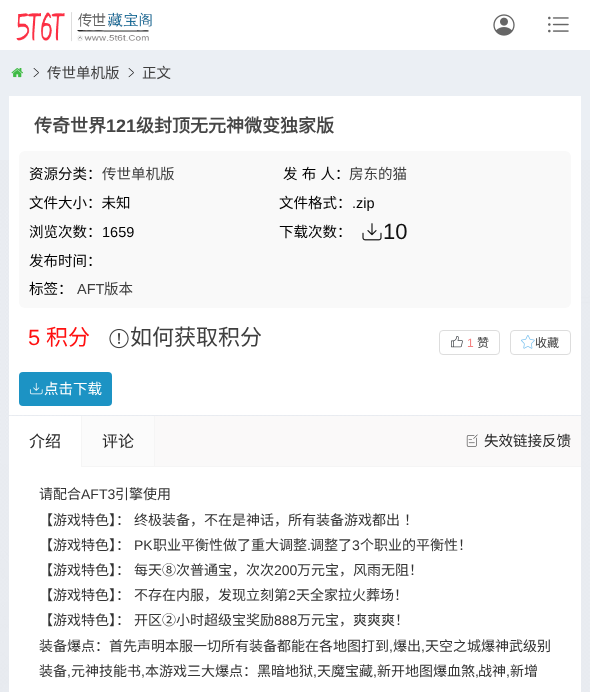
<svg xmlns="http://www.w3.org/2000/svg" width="590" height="692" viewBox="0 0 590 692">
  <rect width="100%" height="100%" fill="#ebeff4"/>
  <image x="0" y="160" width="590" height="532" href="img/1.png"/>
  <path d="M0 0h590v50H0z" fill="#fff"/>
  <image x="16" y="12" width="136" height="30" href="img/2.png"/>
  <image x="493" y="14" width="22" height="22" href="img/3.png"/>
  <image x="548" y="16" width="21" height="17" href="img/4.png"/>
  <image x="11" y="68" width="12" height="10" href="img/5.png"/>
  <image x="33" y="68" width="6" height="10" href="img/6.png"/>
  <image x="128" y="68" width="6" height="10" href="img/6.png"/>
  <path d="M9 96h572v319H9z" fill="#fff"/>
  <rect x="19" y="151" width="552" height="157" rx="6" fill="#f9f9f9"/>
  <image x="362" y="223" width="20" height="18" href="img/7.png"/>
  <image x="109" y="329" width="20" height="20" href="img/8.png"/>
  <rect x="439.5" y="330.5" width="60" height="24" rx="3.5" fill="none" stroke="#ddd"/>
  <image x="451" y="336" width="12" height="12" href="img/9.png"/>
  <rect x="510.5" y="330.5" width="60" height="24" rx="3.5" fill="none" stroke="#ddd"/>
  <image x="521" y="335" width="14" height="14" href="img/10.png"/>
  <rect x="19" y="372" width="93" height="34" rx="4" fill="#1c93c4"/>
  <image x="29" y="382" width="14" height="13" href="img/11.png"/>
  <path d="M9 467h572v225H9z" fill="#fff"/>
  <path d="M155 416h426v50H155z" fill="#faf9f9"/>
  <path d="M155 466h426v1H155z" fill="#f5f5f5"/>
  <path d="M9 416h72v51H9z" fill="#fff"/>
  <path d="M81 416h1v51H81z" fill="#f5f5f5"/>
  <path d="M82 416h72v50H82z" fill="#fbfbfb"/>
  <path d="M154 416h1v51H154z" fill="#f5f5f5"/>
  <path d="M82 466h73v1H82z" fill="#f5f5f5"/>
  <image x="466" y="434" width="12" height="13" href="img/12.png"/>
  <g font-family="Noto Sans CJK SC" font-size="14.5" fill="#3e3e3e">
    <text x="47" y="78">传世单机版</text>
    <text x="142" y="78">正文</text>
  </g>
  <text x="34" y="132" font-family="Noto Sans CJK SC" font-size="18" font-weight="bold" fill="#464646">传奇世界</text>
  <text x="106" y="132" font-family="Liberation Sans" font-size="18" font-weight="bold" fill="#464646">121</text>
  <text x="136" y="132" font-family="Noto Sans CJK SC" font-size="18" font-weight="bold" fill="#464646">级封顶无元神微变独家版</text>
  <text x="29" y="179" font-family="Noto Sans CJK SC" font-size="14.5" fill="#000">资源分类：</text>
  <text x="102" y="179" font-family="Noto Sans CJK SC" font-size="14.5" fill="#3e3e3e">传世单机版</text>
  <text x="283" y="179" word-spacing="1" font-family="Noto Sans CJK SC" font-size="14.5" fill="#000">发 布 人：</text>
  <text x="349" y="179" font-family="Noto Sans CJK SC" font-size="14.5" fill="#3e3e3e">房东的猫</text>
  <g font-family="Noto Sans CJK SC" font-size="14.5" fill="#000">
    <text x="29" y="208">文件大小：未知</text>
    <text x="279" y="208">文件格式：</text>
  </g>
  <text x="352" y="208" font-family="Liberation Sans" font-size="14.5" fill="#000">.zip</text>
  <text x="29" y="237" font-family="Noto Sans CJK SC" font-size="14.5" fill="#000">浏览次数：</text>
  <text x="102" y="237" font-family="Liberation Sans" font-size="14.5" fill="#000">1659</text>
  <text x="279" y="237" font-family="Noto Sans CJK SC" font-size="14.5" fill="#000">下载次数：</text>
  <text x="383" y="239" font-family="Liberation Sans" font-size="22" fill="#111">10</text>
  <g font-family="Noto Sans CJK SC" font-size="14.5" fill="#000">
    <text x="29" y="266">发布时间：</text>
    <text x="29" y="294">标签：</text>
  </g>
  <text x="77" y="294" font-family="Liberation Sans" font-size="14.5" fill="#3e3e3e">AFT</text>
  <text x="104" y="294" font-family="Noto Sans CJK SC" font-size="14.5" fill="#3e3e3e">版本</text>
  <text x="28" y="345" font-family="Liberation Sans" font-size="22" fill="#f11">5</text>
  <text x="46" y="345" font-family="Noto Sans CJK SC" font-size="22" fill="#f11">积分</text>
  <text x="130" y="345" font-family="Noto Sans CJK SC" font-size="22" fill="#3e3e3e">如何获取积分</text>
  <text x="467" y="347" font-family="Liberation Sans" font-size="12" fill="#f58282">1</text>
  <g font-family="Noto Sans CJK SC" font-size="12" fill="#3e3e3e">
    <text x="477" y="347">赞</text>
    <text x="535" y="347">收藏</text>
  </g>
  <text x="44" y="394" font-family="Noto Sans CJK SC" font-size="14.5" fill="#fff">点击下载</text>
  <g font-family="Noto Sans CJK SC" font-size="16" fill="#262626">
    <text x="29" y="447">介绍</text>
    <text x="102" y="447">评论</text>
  </g>
  <text x="484" y="446" font-family="Noto Sans CJK SC" font-size="14.5" fill="#262626">失效链接反馈</text>
  <text x="39" y="499" font-family="Noto Sans CJK SC" font-size="14" fill="#333">请配合</text>
  <text x="81" y="499" font-family="Liberation Sans" font-size="14" fill="#333">AFT3</text>
  <g font-family="Noto Sans CJK SC" font-size="14" fill="#333">
    <text x="115" y="499">引擎使用</text>
    <text x="39" y="525">【游戏特色】：</text>
    <text x="134" y="525">终极装备，不在是神话，所有装备游戏都出</text>
    <text x="404" y="525">！</text>
    <text x="39" y="550">【游戏特色】：</text>
  </g>
  <text x="134" y="550" font-family="Liberation Sans" font-size="14" fill="#333">PK</text>
  <text x="153" y="550" font-family="Noto Sans CJK SC" font-size="14" fill="#333">职业平衡性做了重大调整</text>
  <text x="307" y="550" font-family="Liberation Sans" font-size="14" fill="#333">.</text>
  <text x="310" y="550" font-family="Noto Sans CJK SC" font-size="14" fill="#333">调整了</text>
  <text x="352" y="550" font-family="Liberation Sans" font-size="14" fill="#333">3</text>
  <g font-family="Noto Sans CJK SC" font-size="14" fill="#333">
    <text x="360" y="550">个职业的平衡性！</text>
    <text x="39" y="575">【游戏特色】：</text>
    <text x="134" y="575">每天⑧次普通宝，次次</text>
  </g>
  <text x="274" y="575" font-family="Liberation Sans" font-size="14" fill="#333">200</text>
  <g font-family="Noto Sans CJK SC" font-size="14" fill="#333">
    <text x="297" y="575">万元宝，风雨无阻！</text>
    <text x="39" y="600">【游戏特色】：</text>
    <text x="134" y="600">不存在内服，发现立刻第</text>
  </g>
  <text x="288" y="600" font-family="Liberation Sans" font-size="14" fill="#333">2</text>
  <g font-family="Noto Sans CJK SC" font-size="14" fill="#333">
    <text x="296" y="600">天全家拉火葬场！</text>
    <text x="39" y="625">【游戏特色】：</text>
    <text x="134" y="625">开区②小时超级宝奖励</text>
  </g>
  <text x="274" y="625" font-family="Liberation Sans" font-size="14" fill="#333">888</text>
  <g font-family="Noto Sans CJK SC" font-size="14" fill="#333">
    <text x="297" y="625">万元宝，爽爽爽！</text>
    <text x="39" y="651">装备爆点：首先声明本服一切所有装备都能在各地图打到</text>
  </g>
  <text x="389" y="651" font-family="Liberation Sans" font-size="14" fill="#333">,</text>
  <text x="393" y="651" font-family="Noto Sans CJK SC" font-size="14" fill="#333">爆出</text>
  <text x="421" y="651" font-family="Liberation Sans" font-size="14" fill="#333">,</text>
  <g font-family="Noto Sans CJK SC" font-size="14" fill="#333">
    <text x="425" y="651">天空之城爆神武级别</text>
    <text x="39" y="676">装备</text>
  </g>
  <text x="67" y="676" font-family="Liberation Sans" font-size="14" fill="#333">,</text>
  <text x="71" y="676" font-family="Noto Sans CJK SC" font-size="14" fill="#333">元神技能书</text>
  <text x="141" y="676" font-family="Liberation Sans" font-size="14" fill="#333">,</text>
  <text x="145" y="676" font-family="Noto Sans CJK SC" font-size="14" fill="#333">本游戏三大爆点：黑暗地狱</text>
  <text x="313" y="676" font-family="Liberation Sans" font-size="14" fill="#333">,</text>
  <text x="317" y="676" font-family="Noto Sans CJK SC" font-size="14" fill="#333">天魔宝藏</text>
  <text x="373" y="676" font-family="Liberation Sans" font-size="14" fill="#333">,</text>
  <text x="377" y="676" font-family="Noto Sans CJK SC" font-size="14" fill="#333">新开地图爆血煞</text>
  <text x="475" y="676" font-family="Liberation Sans" font-size="14" fill="#333">,</text>
  <text x="478" y="676" font-family="Noto Sans CJK SC" font-size="14" fill="#333">战神</text>
  <text x="506" y="676" font-family="Liberation Sans" font-size="14" fill="#333">,</text>
  <text x="510" y="676" font-family="Noto Sans CJK SC" font-size="14" fill="#333">新增</text>
</svg>
